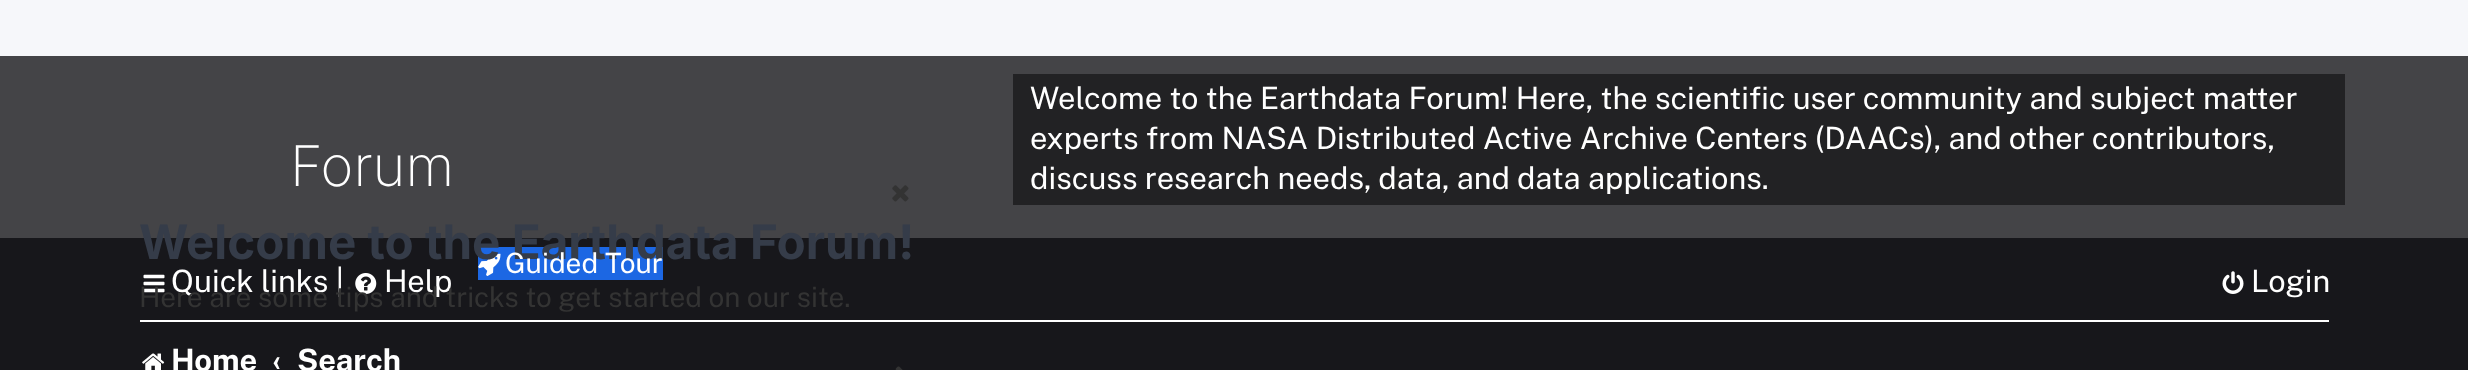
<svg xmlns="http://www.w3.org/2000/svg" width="2468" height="370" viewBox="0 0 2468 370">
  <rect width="100%" height="100%" fill="#f6f7fa"/>
  <path d="M0 56h2468v182H0z" fill="#444447"/>
  <path d="M1013 74h1332v131H1013z" fill="#222224"/>
  <path d="M0 238h2468v132H0z" fill="#17171b"/>
  <image x="892" y="185" width="17" height="17" href="img/1.png"/>
  <image x="895" y="366" width="8" height="4" href="img/2.png"/>
  <path d="M478 247h185v33H478z" fill="#1c67e3"/>
  <image x="478" y="253" width="23" height="23" href="img/3.png"/>
  <image x="143" y="274" width="22" height="19" href="img/4.png"/>
  <image x="355" y="273" width="22" height="21" href="img/5.png"/>
  <image x="2222" y="271" width="22" height="23" href="img/6.png"/>
  <path d="M140 320h2189v2H140z" fill="#fff"/>
  <image x="142" y="353" width="23" height="17" href="img/7.png"/>
  <text x="290" y="186" font-family="Inter" font-size="56" font-weight="200" fill="#fff">Forum</text>
  <g font-family="Public Sans" font-size="30.8" fill="#fff">
    <text x="1030" y="109">Welcome to the Earthdata Forum! Here, the scientific user community and subject matter</text>
    <text x="1030" y="149">experts from NASA Distributed Active Archive Centers (DAACs), and other contributors,</text>
    <text x="1030" y="189">discuss research needs, data, and data applications.</text>
  </g>
  <text x="139" y="259" font-family="Inter" font-size="47.6" font-weight="bold" fill="#353c49">Welcome to the Earthdata Forum!</text>
  <text x="505" y="273" font-family="Public Sans" font-size="28" fill="#fff">Guided Tour</text>
  <g font-family="Public Sans" font-size="30.8" fill="#fff">
    <text x="171" y="292">Quick links |</text>
    <text x="384" y="292">Help</text>
  </g>
  <text x="139" y="307" font-family="Public Sans" font-size="28" fill="#333">Here are some tips and tricks to get started on our site.</text>
  <text x="2251" y="292" font-family="Public Sans" font-size="30.8" fill="#fff">Login</text>
  <g font-family="Public Sans" font-size="30.8" font-weight="bold" fill="#fff">
    <text x="171" y="371">Home</text>
    <text x="272" y="371">‹</text>
    <text x="297" y="371">Search</text>
  </g>
</svg>
